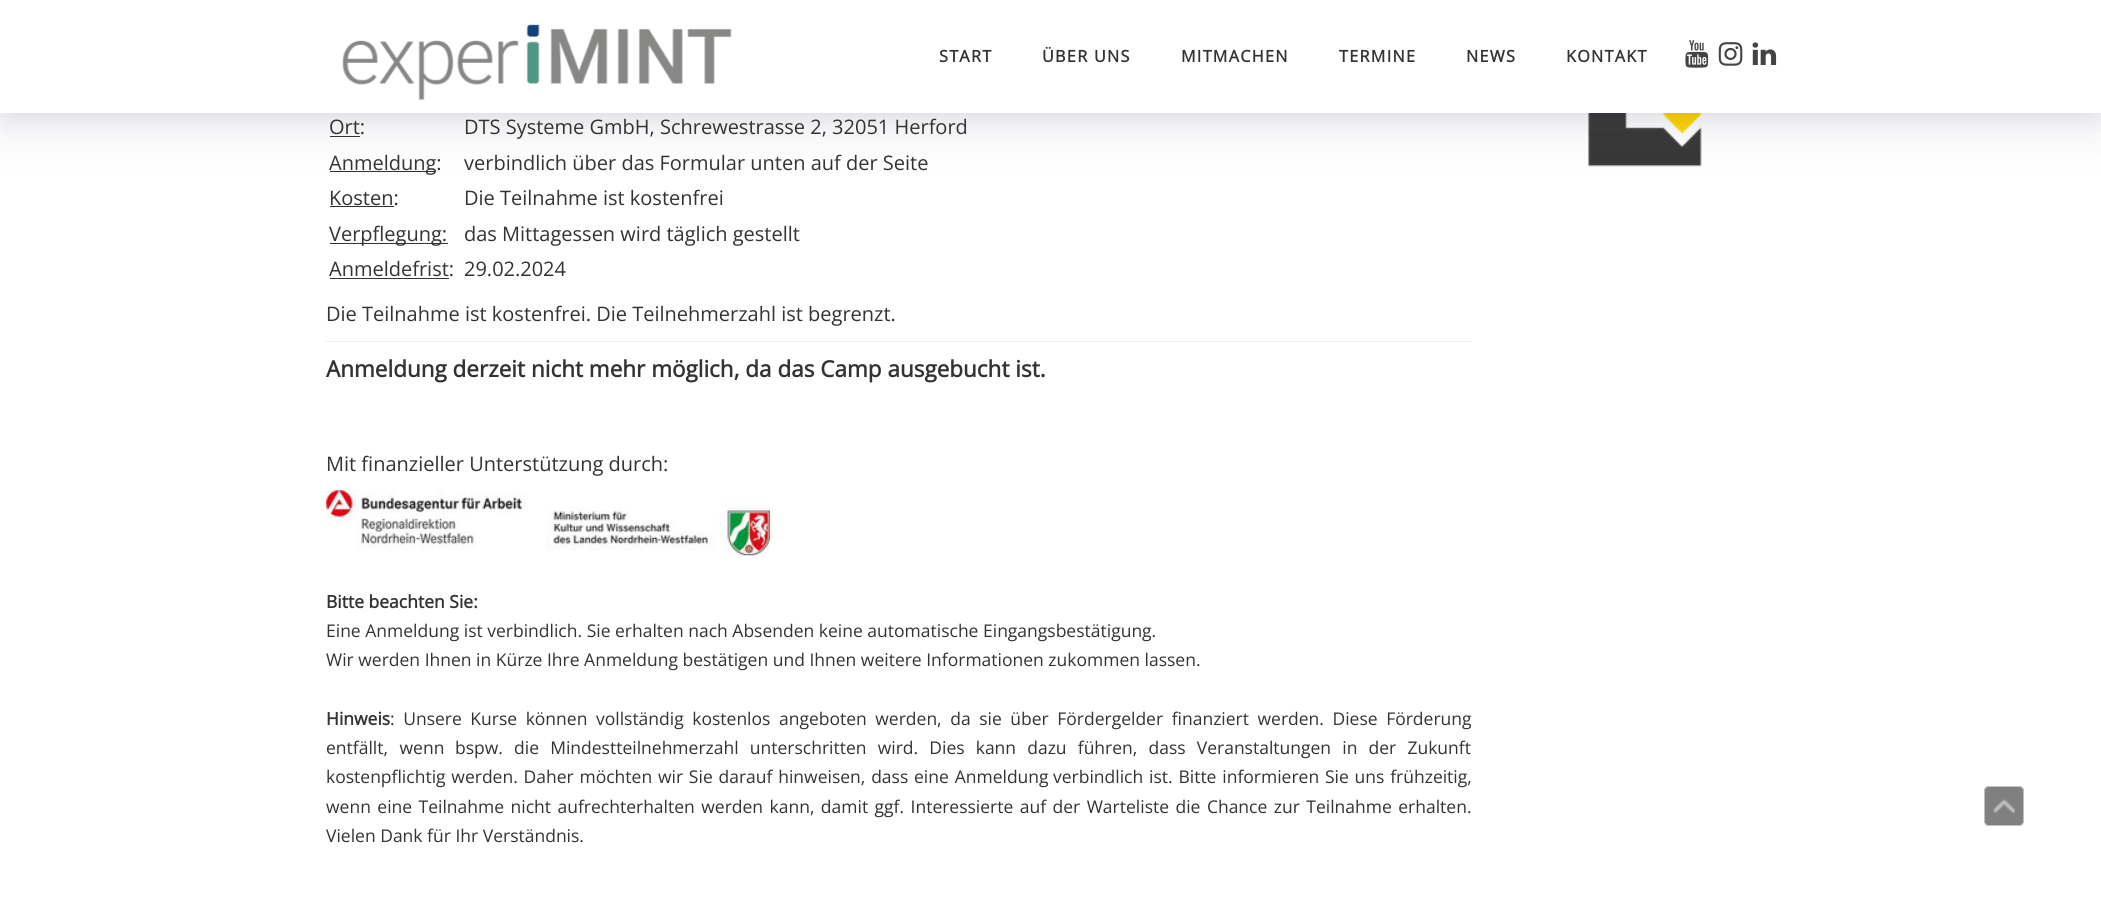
import math
import cairo

surface = cairo.ImageSurface(cairo.Format.RGB24, 2101, 901)
ctx = cairo.Context(surface)
options = cairo.FontOptions()
options.set_hint_metrics(cairo.HintMetrics.OFF)
options.set_hint_style(cairo.HintStyle.NONE)
ctx.set_font_options(options)
ctx.set_miter_limit(4)


def ink(r, g, b):
    ctx.set_source_rgb(r / 255, g / 255, b / 255)


def write(x, y, s, family, size, color, bold=False, italic=False):
    ctx.select_font_face(family, cairo.FontSlant.ITALIC if italic else cairo.FontSlant.NORMAL, cairo.FontWeight.BOLD if bold else cairo.FontWeight.NORMAL)
    ctx.set_font_size(size)
    ink(*color)
    ctx.move_to(x, y)
    ctx.show_text(s)


def write_spaced(x, y, s, letter, word):
    ctx.move_to(x, y)
    for ch in s:
        ctx.show_text(ch)
        ctx.rel_move_to(letter + word * (ch == ' '), 0)


def block(x, y, w, h, *color):
    ink(*color)
    ctx.rectangle(x, y, w, h)
    ctx.fill()


def round_path(x, y, w, h, r):
    ctx.new_sub_path()
    for i, (u, v) in enumerate([(x + w - r, y + h - r), (x + r, y + h - r), (x + r, y + r), (x + w - r, y + r)]):
        ctx.arc(u, v, r, i * math.pi / 2, (i + 1) * math.pi / 2)
    ctx.close_path()


def blur_box(x, y, w, h, r, blur, alpha):
    ctx.push_group_with_content(cairo.Content.ALPHA)
    ctx.set_operator(cairo.Operator.SOURCE)
    for i in range(15, -16, -2):
        e = blur * i / 6
        if min(w, h) + 2 * e > 0:
            ctx.set_source_rgba(0, 0, 0, alpha * math.erfc((i - 1) / 8.5) / 2)
            round_path(x - e, y - e, w + 2 * e, h + 2 * e, max(0, min(r + e + blur * .6, min(w, h) / 2 + e)))
            ctx.fill()
    ctx.mask(ctx.pop_group())


def paste(path, x, y, w, h):
    ctx.save()
    ctx.set_source_surface(cairo.ImageSurface.create_from_png(path), x, y)
    ctx.rectangle(x, y, w, h)
    ctx.fill()
    ctx.restore()


s1 = dict(family="Open Sans", size=20, color=(51, 51, 51))
s2 = dict(family="Open Sans", size=22.5, color=(51, 51, 51), bold=True)
s3 = dict(family="Open Sans", size=17.5, color=(51, 51, 51), bold=True)
s4 = dict(family="Open Sans", size=17.5, color=(51, 51, 51))

ink(255, 255, 255)
ctx.paint()
block(330, 136, 30, 1, 51, 51, 51)
paste("pic6.png", 1588, 113, 114, 54)
ink(0, 0, 0)
blur_box(0, 6, 2101, 113, 0, 9.5, 0.07)
block(330, 171, 106, 1, 51, 51, 51)
ink(74, 74, 115)
blur_box(0, 21, 2101, 113, 0, 22, 0.1)
block(0, 0, 2101, 113, 255, 255, 255)
paste("pic1.png", 342, 24, 390, 76)
ctx.select_font_face("Open Sans", cairo.FontSlant.NORMAL, cairo.FontWeight.BOLD)
ctx.set_font_size(16.25)
ink(51, 51, 51)
write_spaced(939, 62, "START", 1.25, 0)
write_spaced(1042, 62, "ÜBER UNS", 1.25, 0)
write_spaced(1181, 62, "MITMACHEN", 1.25, 0)
write_spaced(1339, 62, "TERMINE", 1.25, 0)
write_spaced(1466, 62, "NEWS", 1.25, 0)
write_spaced(1566, 62, "KONTAKT", 1.25, 0)
paste("pic2.png", 1685, 40, 24, 28)
paste("pic3.png", 1718, 42, 25, 24)
paste("pic4.png", 1752, 42, 25, 23)
write(329, 134, "Ort:", **s1)
write(464, 134, "DTS Systeme GmbH, Schrewestrasse 2, 32051 Herford", **s1)
write(329, 170, "Anmeldung:", **s1)
write(464, 170, "verbindlich über das Formular unten auf der Seite", **s1)
write(329, 205, "Kosten:", **s1)
block(330, 206, 64, 1, 51, 51, 51)
write(464, 205, "Die Teilnahme ist kostenfrei", **s1)
block(330, 243, 118, 1, 51, 51, 51)
write(329, 241, "Verpflegung:", **s1)
write(464, 241, "das Mittagessen wird täglich gestellt", **s1)
write(329, 276, "Anmeldefrist:", **s1)
block(330, 278, 119, 1, 51, 51, 51)
write(464, 276, "29.02.2024", **s1)
write(326, 321, "Die Teilnahme ist kostenfrei. Die Teilnehmerzahl ist begrenzt.", **s1)
block(326, 341, 1145, 1, 238, 238, 238)
write(326, 377, "Anmeldung derzeit nicht mehr möglich, da das Camp ausgebucht ist.", **s2)
write(326, 471, "Mit finanzieller Unterstützung durch:", **s1)
paste("pic5.png", 326, 490, 444, 66)
write(326, 608, "Bitte beachten Sie:", **s3)
write(326, 637, "Eine Anmeldung ist verbindlich. Sie erhalten nach Absenden keine automatische Eingangsbestätigung.", **s4)
write(326, 666, "Wir werden Ihnen in Kürze Ihre Anmeldung bestätigen und Ihnen weitere Informationen zukommen lassen.", **s4)
write(326, 725, "Hinweis", **s3)
ctx.select_font_face("Open Sans")
write_spaced(390, 725, ": Unsere Kurse können vollständig kostenlos angeboten werden, da sie über Fördergelder finanziert werden. Diese Förderung", 0, 4)
write_spaced(326, 754, "entfällt, wenn", 0, 7)
write_spaced(455, 754, "bspw. die Mindestteilnehmerzahl unterschritten wird. Dies kann dazu führen, dass Veranstaltungen in der Zukunft", 0, 6.6)
write_spaced(326, 783, "kostenpflichtig werden. Daher möchten wir Sie darauf hinweisen, dass eine Anmeldung", 0, 1.25)
write_spaced(1053, 783, "verbindlich ist. Bitte informieren Sie uns frühzeitig,", 0, 1.25)
write_spaced(326, 813, "wenn eine Teilnahme nicht aufrechterhalten werden kann, damit ggf. Interessierte auf der Warteliste die Chance zur Teilnahme erhalten.", 0, 1.9)
write(326, 842, "Vielen Dank für Ihr Verständnis.", **s4)
ink(128, 128, 128)
round_path(1984, 786, 40, 40, 5)
ctx.fill()
round_path(1984.5, 786.5, 39, 39, 4.5)
ctx.set_source_rgba(1, 1, 1, 0.5)
ctx.set_line_width(1)
ctx.stroke()
paste("pic7.png", 1993, 799, 23, 14)
surface.write_to_png("screenshot.png")
